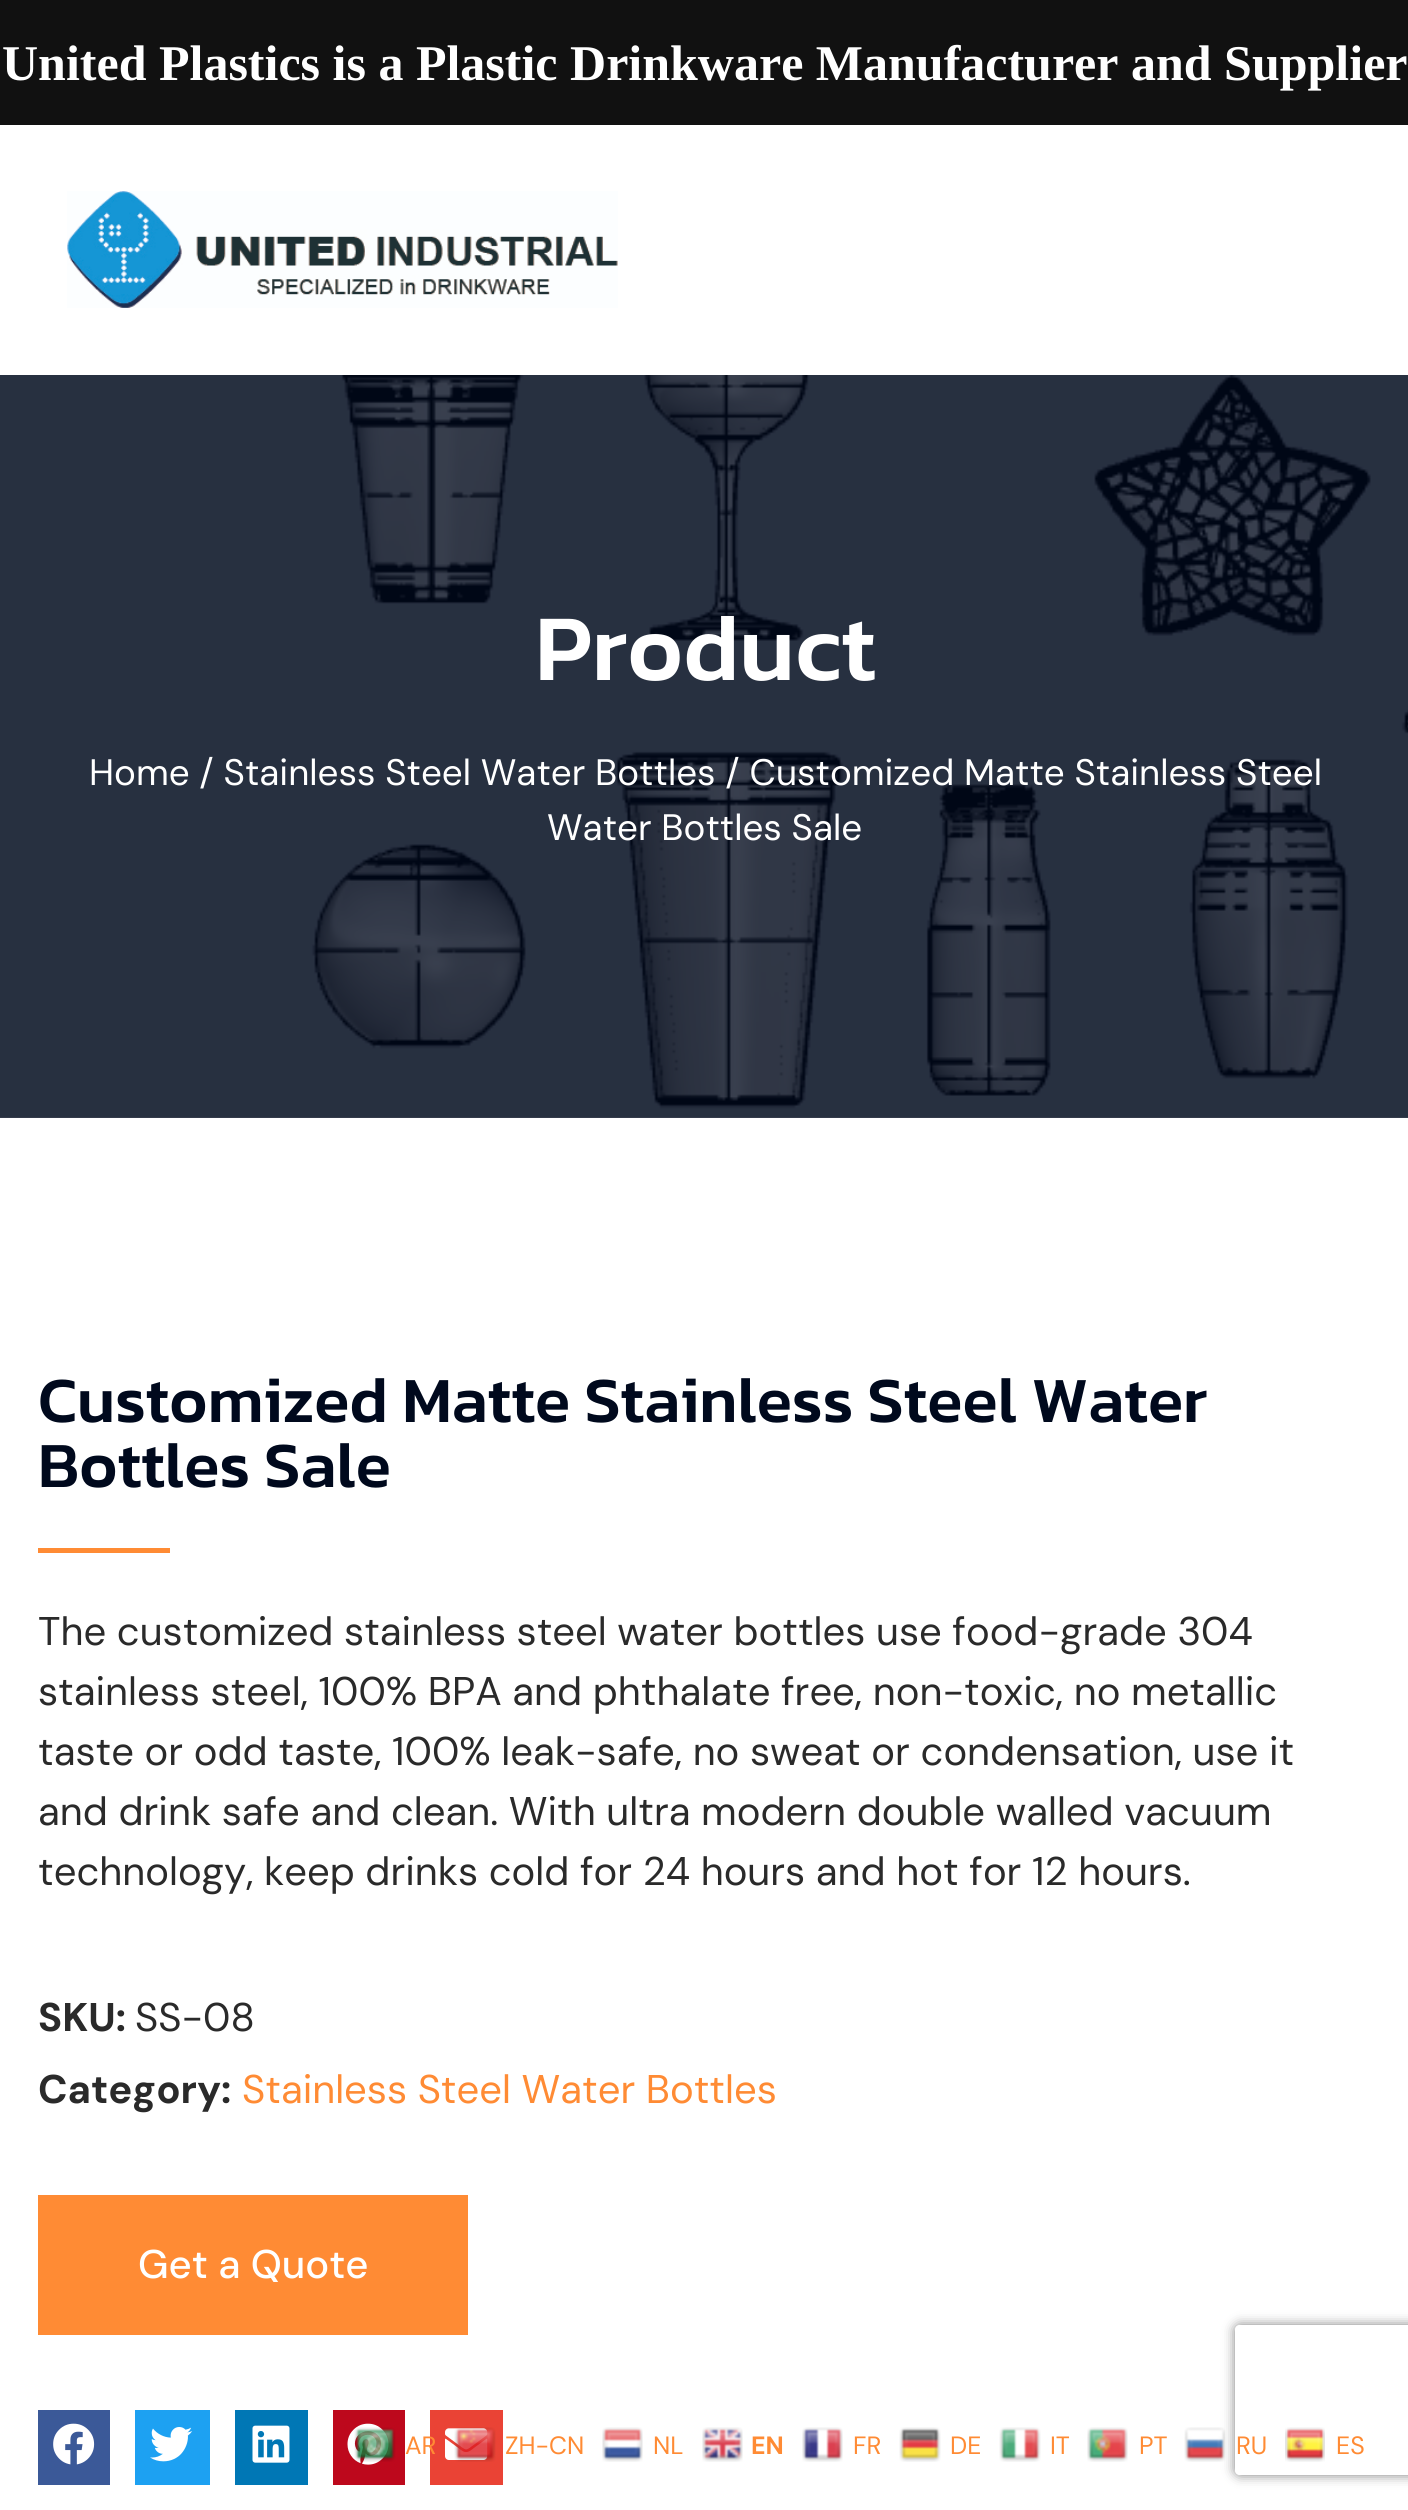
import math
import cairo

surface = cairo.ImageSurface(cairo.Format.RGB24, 1408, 2510)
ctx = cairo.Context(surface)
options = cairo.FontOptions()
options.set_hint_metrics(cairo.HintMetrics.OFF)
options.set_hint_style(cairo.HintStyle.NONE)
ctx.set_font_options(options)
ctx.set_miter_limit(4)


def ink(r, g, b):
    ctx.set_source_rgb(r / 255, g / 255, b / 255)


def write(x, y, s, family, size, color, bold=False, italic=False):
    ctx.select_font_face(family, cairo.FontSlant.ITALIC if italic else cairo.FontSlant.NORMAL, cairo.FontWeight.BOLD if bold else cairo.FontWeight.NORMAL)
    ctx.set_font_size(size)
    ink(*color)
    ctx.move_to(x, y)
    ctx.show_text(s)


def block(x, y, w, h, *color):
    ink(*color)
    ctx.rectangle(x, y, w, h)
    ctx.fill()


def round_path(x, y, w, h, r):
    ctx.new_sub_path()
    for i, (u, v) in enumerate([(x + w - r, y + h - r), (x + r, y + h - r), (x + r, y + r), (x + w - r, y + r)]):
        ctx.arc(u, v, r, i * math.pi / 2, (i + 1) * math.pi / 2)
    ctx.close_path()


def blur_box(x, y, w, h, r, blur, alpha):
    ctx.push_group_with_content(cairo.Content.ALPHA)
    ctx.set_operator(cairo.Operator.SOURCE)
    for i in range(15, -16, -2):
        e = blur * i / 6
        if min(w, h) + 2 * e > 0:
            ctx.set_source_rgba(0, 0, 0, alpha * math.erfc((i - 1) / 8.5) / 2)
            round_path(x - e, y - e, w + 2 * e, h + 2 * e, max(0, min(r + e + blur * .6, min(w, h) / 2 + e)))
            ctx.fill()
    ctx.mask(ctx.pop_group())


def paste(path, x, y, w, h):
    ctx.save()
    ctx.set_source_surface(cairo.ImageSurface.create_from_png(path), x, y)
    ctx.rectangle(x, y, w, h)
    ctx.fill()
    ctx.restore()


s1 = dict(family="Liberation Serif", size=50, color=(255, 255, 255), bold=True)
s2 = dict(family="Kanit Medium", size=95, color=(255, 255, 255))
s3 = dict(family="DM Sans", size=36.8, color=(255, 255, 255))
s4 = dict(family="Kanit Medium", size=65, color=(0, 9, 29))
s5 = dict(family="DM Sans", size=40, color=(42, 42, 42))
s6 = dict(family="DM Sans", size=40, color=(42, 42, 42), bold=True)
s7 = dict(family="DM Sans", size=40, color=(255, 139, 52))
s8 = dict(family="DM Sans Medium", size=40, color=(255, 255, 255))
s9 = dict(family="DM Sans", size=25, color=(255, 139, 52))
s10 = dict(family="DM Sans", size=25, color=(255, 139, 52), bold=True)

ink(255, 255, 255)
ctx.paint()
block(0, 1117, 1408, 1, 64, 71, 86)
block(0, 0, 1408, 125, 17, 17, 17)
write(2, 80, "United Plastics is a Plastic Drinkware Manufacturer and Supplier", **s1)
paste("pic1.png", 67, 191, 551, 117)
paste("pic2.png", 0, 375, 1408, 743)
write(535, 680, "Product", **s2)
write(89, 785, "Home / Stainless Steel Water Bottles / Customized Matte Stainless Steel", **s3)
write(547, 840, "Water Bottles Sale", **s3)
write(38, 1422, "Customized Matte Stainless Steel Water", **s4)
write(38, 1487, "Bottles Sale", **s4)
block(38, 1548, 132, 5, 255, 139, 52)
write(38, 1645, "The customized stainless steel water bottles use food-grade 304", **s5)
write(38, 1705, "stainless steel, 100% BPA and phthalate free, non-toxic, no metallic", **s5)
write(38, 1765, "taste or odd taste, 100% leak-safe, no sweat or condensation, use it", **s5)
write(38, 1825, "and drink safe and clean. With ultra modern double walled vacuum", **s5)
write(38, 1885, "technology, keep drinks cold for 24 hours and hot for 12 hours.", **s5)
write(38, 2031, "SKU:", **s6)
write(135, 2031, "SS-08", **s5)
write(38, 2103, "Category:", **s6)
write(242, 2103, "Stainless Steel Water Bottles", **s7)
block(38, 2195, 430, 140, 255, 139, 52)
write(138, 2278, "Get a Quote", **s8)
block(38, 2410, 72, 75, 59, 89, 152)
paste("pic3.png", 53, 2423, 42, 42)
block(135, 2410, 75, 75, 29, 161, 242)
paste("pic4.png", 150, 2427, 43, 35)
block(235, 2410, 73, 75, 0, 119, 181)
paste("pic5.png", 252, 2425, 38, 38)
block(333, 2410, 72, 75, 189, 8, 28)
paste("pic6.png", 347, 2423, 42, 42)
block(430, 2410, 73, 75, 234, 67, 53)
paste("pic7.png", 445, 2428, 43, 32)
ctx.save()
ctx.set_fill_rule(cairo.FillRule.EVEN_ODD)
ctx.new_path()
ctx.move_to(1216, 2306)
ctx.line_to(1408, 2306)
ctx.line_to(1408, 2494)
ctx.line_to(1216, 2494)
ctx.close_path()
ctx.move_to(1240, 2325)
ctx.line_to(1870, 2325)
ctx.curve_to(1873, 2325, 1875, 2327, 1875, 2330)
ctx.line_to(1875, 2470)
ctx.curve_to(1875, 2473, 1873, 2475, 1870, 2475)
ctx.line_to(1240, 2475)
ctx.curve_to(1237, 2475, 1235, 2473, 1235, 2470)
ctx.line_to(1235, 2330)
ctx.curve_to(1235, 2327, 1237, 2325, 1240, 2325)
ctx.close_path()
ctx.clip()
ink(128, 128, 128)
blur_box(1235, 2325, 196, 150, 5, 6, 1)
ctx.restore()
paste("pic8.png", 354, 2427, 42, 35)
write(405, 2454, "AR", **s9)
paste("pic9.png", 454, 2427, 42, 35)
write(505, 2454, "ZH-CN", **s9)
paste("pic10.png", 602, 2427, 41, 35)
write(653, 2454, "NL", **s9)
paste("pic11.png", 702, 2427, 41, 35)
write(751, 2454, "EN", **s10)
paste("pic12.png", 802, 2427, 41, 35)
write(853, 2454, "FR", **s9)
paste("pic13.png", 899, 2427, 42, 35)
write(950, 2454, "DE", **s9)
paste("pic14.png", 999, 2427, 42, 35)
write(1050, 2454, "IT", **s9)
paste("pic15.png", 1087, 2427, 41, 35)
write(1139, 2454, "PT", **s9)
paste("pic16.png", 1184, 2427, 42, 35)
write(1236, 2454, "RU", **s9)
paste("pic17.png", 1285, 2427, 40, 35)
write(1336, 2454, "ES", **s9)
surface.write_to_png("screenshot.png")
